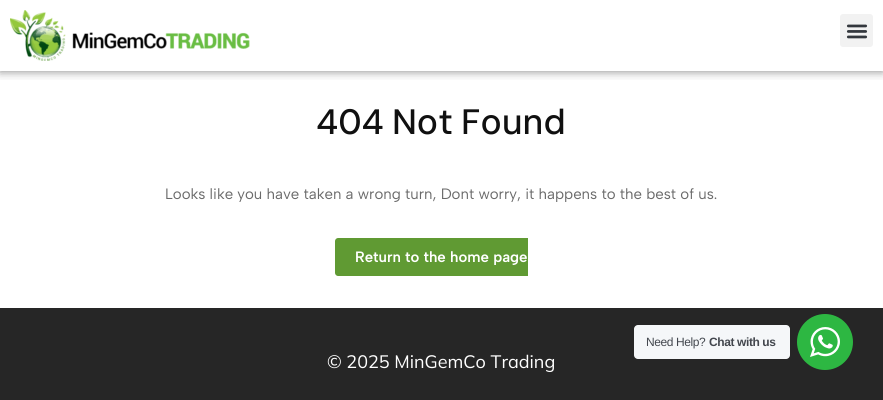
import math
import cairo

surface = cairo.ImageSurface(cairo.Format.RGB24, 883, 400)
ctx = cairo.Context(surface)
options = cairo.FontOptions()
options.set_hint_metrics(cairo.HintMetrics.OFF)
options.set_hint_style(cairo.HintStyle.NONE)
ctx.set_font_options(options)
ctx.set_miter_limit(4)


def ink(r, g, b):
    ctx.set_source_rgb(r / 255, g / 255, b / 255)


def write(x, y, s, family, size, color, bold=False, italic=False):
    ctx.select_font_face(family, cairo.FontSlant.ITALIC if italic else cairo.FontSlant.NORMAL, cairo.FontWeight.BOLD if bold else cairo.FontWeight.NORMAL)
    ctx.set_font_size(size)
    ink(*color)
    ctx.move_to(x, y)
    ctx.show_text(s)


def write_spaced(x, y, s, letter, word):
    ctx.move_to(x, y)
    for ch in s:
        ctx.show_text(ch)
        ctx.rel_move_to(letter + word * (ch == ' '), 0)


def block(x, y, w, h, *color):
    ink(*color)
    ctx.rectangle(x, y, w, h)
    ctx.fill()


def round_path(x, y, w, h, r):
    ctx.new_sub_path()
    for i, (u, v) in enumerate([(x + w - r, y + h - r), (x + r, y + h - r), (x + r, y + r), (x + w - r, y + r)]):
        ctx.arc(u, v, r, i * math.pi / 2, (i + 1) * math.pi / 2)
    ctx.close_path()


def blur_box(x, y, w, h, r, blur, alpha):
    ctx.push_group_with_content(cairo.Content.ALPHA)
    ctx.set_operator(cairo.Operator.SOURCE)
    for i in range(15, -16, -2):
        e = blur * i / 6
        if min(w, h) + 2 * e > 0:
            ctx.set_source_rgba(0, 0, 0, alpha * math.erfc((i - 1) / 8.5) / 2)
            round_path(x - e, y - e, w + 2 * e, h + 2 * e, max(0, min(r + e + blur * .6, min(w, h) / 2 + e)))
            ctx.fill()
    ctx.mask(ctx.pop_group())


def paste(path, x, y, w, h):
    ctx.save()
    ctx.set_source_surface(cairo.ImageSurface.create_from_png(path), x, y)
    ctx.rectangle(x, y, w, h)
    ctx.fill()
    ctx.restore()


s1 = dict(family="Albert Sans", size=15, color=(106, 106, 106))
s2 = dict(family="Albert Sans SemiBold", size=15, color=(255, 255, 255))
s3 = dict(family="Mulish", size=18, color=(255, 255, 255))

ink(255, 255, 255)
ctx.paint()
ctx.save()
ctx.rectangle(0, 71, 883, 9)
ctx.clip()
ink(0, 0, 0)
blur_box(0, 0, 883, 71, 0, 5, 0.5)
ctx.restore()
paste("pic1.png", 10, 10, 240, 51)
ink(242, 242, 242)
round_path(840, 14, 33, 33, 3)
ctx.fill()
paste("pic2.png", 846, 24, 22, 15)
ctx.select_font_face("DM Sans Medium")
ctx.set_font_size(35.25)
ink(16, 16, 16)
write_spaced(316, 134, "404 Not Found", 0, -1)
write(165, 199, "Looks like you have taken a wrong turn, Dont worry, it happens to the best of us.", **s1)
ink(96, 154, 51)
ctx.new_path()
ctx.move_to(338, 238)
ctx.line_to(528, 238)
ctx.line_to(528, 276)
ctx.line_to(338, 276)
ctx.curve_to(336.5, 276, 335, 274.5, 335, 273)
ctx.line_to(335, 241)
ctx.curve_to(335, 239.5, 336.5, 238, 338, 238)
ctx.close_path()
ctx.fill()
write(355, 262, "Return to the home page", **s2)
block(0, 308, 883, 92, 38, 38, 38)
ink(245, 247, 249)
round_path(634, 325, 156, 34, 4)
ctx.fill()
ctx.select_font_face("Liberation Sans")
ctx.set_font_size(12)
ink(67, 71, 78)
write_spaced(646, 346, "Need Help?", -0.4, 0)
ctx.select_font_face("Liberation Sans", cairo.FontSlant.NORMAL, cairo.FontWeight.BOLD)
write_spaced(709, 346, "Chat with us", -0.4, 0)
ink(45, 183, 66)
ctx.new_path()
ctx.arc(825, 342, 28, 0, 2 * math.pi)
ctx.fill()
paste("pic3.png", 810, 327, 30, 30)
write(327, 368, "© 2025 MinGemCo Trading", **s3)
surface.write_to_png("screenshot.png")
